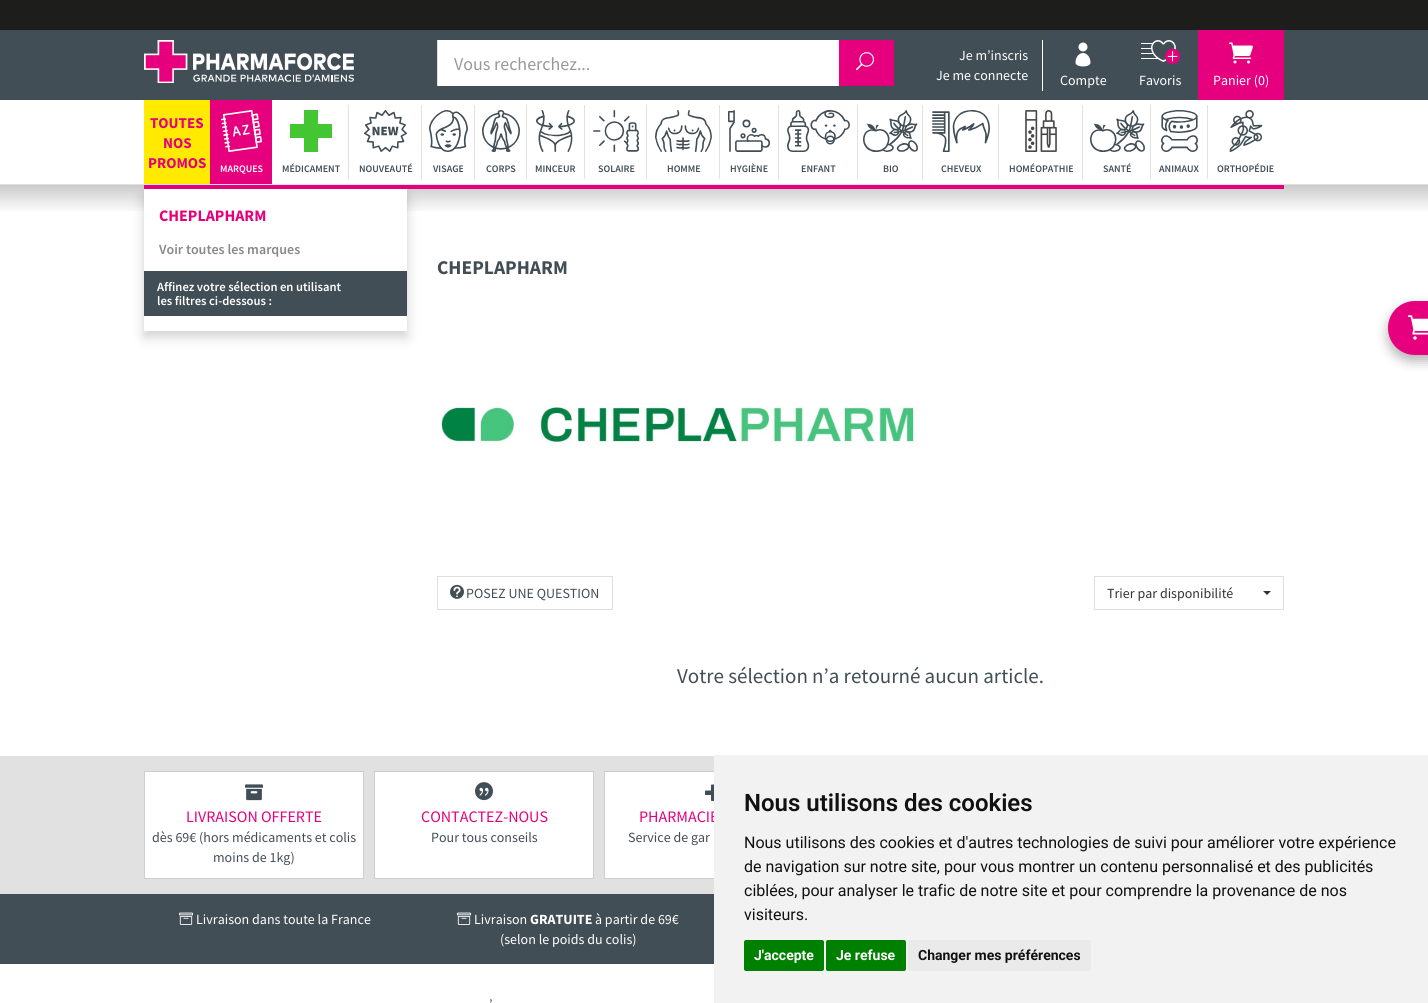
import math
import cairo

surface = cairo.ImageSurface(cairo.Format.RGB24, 1428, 1003)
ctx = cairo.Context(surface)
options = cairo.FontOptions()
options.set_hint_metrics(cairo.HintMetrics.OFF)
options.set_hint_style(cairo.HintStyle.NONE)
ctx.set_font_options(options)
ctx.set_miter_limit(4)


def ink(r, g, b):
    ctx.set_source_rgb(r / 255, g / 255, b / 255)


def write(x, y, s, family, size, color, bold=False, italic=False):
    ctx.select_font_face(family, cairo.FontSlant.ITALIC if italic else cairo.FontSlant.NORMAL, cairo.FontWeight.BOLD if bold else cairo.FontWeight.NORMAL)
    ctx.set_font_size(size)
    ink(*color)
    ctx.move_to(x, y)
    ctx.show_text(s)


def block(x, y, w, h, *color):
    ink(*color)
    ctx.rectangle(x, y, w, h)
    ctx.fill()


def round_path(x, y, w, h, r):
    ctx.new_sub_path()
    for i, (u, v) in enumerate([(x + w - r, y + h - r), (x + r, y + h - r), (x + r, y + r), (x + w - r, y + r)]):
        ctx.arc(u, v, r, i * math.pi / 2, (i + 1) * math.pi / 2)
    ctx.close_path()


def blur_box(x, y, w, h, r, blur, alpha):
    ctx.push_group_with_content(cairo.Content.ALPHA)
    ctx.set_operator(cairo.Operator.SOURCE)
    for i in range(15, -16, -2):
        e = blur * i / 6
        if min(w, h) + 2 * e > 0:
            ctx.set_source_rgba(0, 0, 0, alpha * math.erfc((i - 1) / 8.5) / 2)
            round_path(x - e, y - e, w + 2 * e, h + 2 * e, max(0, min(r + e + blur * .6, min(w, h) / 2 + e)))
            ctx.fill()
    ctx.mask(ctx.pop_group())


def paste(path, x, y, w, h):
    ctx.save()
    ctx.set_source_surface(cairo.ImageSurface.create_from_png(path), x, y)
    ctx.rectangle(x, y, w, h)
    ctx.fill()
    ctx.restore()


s1 = dict(family="Source Sans Pro", size=18, color=(153, 153, 153))
s2 = dict(family="Source Sans Pro", size=14, color=(255, 255, 255))
s3 = dict(family="Source Sans Pro", size=15, color=(230, 0, 126), bold=True)
s4 = dict(family="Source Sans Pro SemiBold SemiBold", size=10, color=(255, 255, 255))
s5 = dict(family="Source Sans Pro SemiBold SemiBold", size=10, color=(65, 78, 86))
s6 = dict(family="Source Sans Pro", size=16, color=(230, 0, 126), bold=True)
s7 = dict(family="Source Sans Pro SemiBold SemiBold", size=14, color=(136, 136, 136))
s8 = dict(family="Source Sans Pro SemiBold SemiBold", size=12.6, color=(255, 255, 255))
s9 = dict(family="Source Sans Pro", size=19.5, color=(65, 78, 86), bold=True)
s10 = dict(family="Source Sans Pro", size=14, color=(65, 78, 86))
s11 = dict(family="Source Sans Pro", size=14, color=(51, 51, 51))
s12 = dict(family="Source Sans Pro", size=21, color=(65, 78, 86))
s13 = dict(family="Source Sans Pro", size=16, color=(230, 0, 126))
s14 = dict(family="Source Sans Pro", size=14, color=(255, 255, 255), bold=True)
s15 = dict(family="Roboto SemiBold", size=24, color=(17, 17, 17))
s16 = dict(family="Roboto", size=16, color=(17, 17, 17))
s17 = dict(family="Roboto", size=14, color=(255, 255, 255), bold=True)
s18 = dict(family="Roboto", size=14, color=(17, 17, 17), bold=True)

ink(255, 255, 255)
ctx.paint()
paste("pic20.png", 0, 185, 1428, 26)
block(144, 185, 1140, 4, 230, 0, 126)
ctx.save()
ctx.set_fill_rule(cairo.FillRule.EVEN_ODD)
ctx.new_path()
ctx.move_to(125, 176)
ctx.line_to(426, 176)
ctx.line_to(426, 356)
ctx.line_to(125, 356)
ctx.close_path()
ctx.move_to(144, 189)
ctx.line_to(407, 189)
ctx.line_to(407, 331)
ctx.line_to(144, 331)
ctx.close_path()
ctx.clip()
ink(0, 0, 0)
blur_box(144, 195, 263, 142, 0, 6, 0.18)
ctx.restore()
block(0, 184, 1428, 1, 225, 225, 225)
block(0, 0, 1428, 30, 29, 29, 27)
block(0, 30, 1428, 70, 65, 78, 86)
paste("pic1.png", 144, 40, 210, 43)
block(438, 40, 401, 46, 255, 255, 255)
block(437, 40, 1, 46, 223, 223, 223)
write(454, 70, "Vous recherchez...", **s1)
block(839, 40, 55, 46, 230, 0, 126)
paste("pic2.png", 856, 52, 18, 19)
write(959, 60, "Je m’inscris", **s2)
block(1042, 40, 1, 51, 255, 255, 255)
write(936, 80, "Je me connecte", **s2)
paste("pic3.png", 1075, 42, 16, 25)
write(1060, 85, "Compte", **s2)
paste("pic4.png", 1141, 40, 39, 24)
write(1139, 85, "Favoris", **s2)
block(1198, 30, 86, 70, 230, 0, 126)
paste("pic5.png", 1229, 42, 24, 22)
write(1213, 85, "Panier (0)", **s2)
block(144, 100, 66, 84, 255, 234, 0)
write(150, 128, "TOUTES", **s3)
write(163, 148, "NOS", **s3)
write(148, 168, "PROMOS", **s3)
block(210, 100, 62, 84, 230, 0, 126)
paste("pic6.png", 221, 110, 41, 42)
write(220, 172, "MARQUES", **s4)
ink(67, 198, 49)
ctx.new_path()
ctx.move_to(332, 124)
ctx.line_to(318, 124)
ctx.line_to(318, 110)
ctx.line_to(304, 110)
ctx.line_to(304, 124)
ctx.line_to(290, 124)
ctx.line_to(290, 138)
ctx.line_to(304, 138)
ctx.line_to(304, 152)
ctx.line_to(318, 152)
ctx.line_to(318, 138)
ctx.line_to(332, 138)
ctx.close_path()
ctx.fill()
write(282, 172, "MÉDICAMENT", **s5)
block(348, 105, 1, 74, 225, 225, 225)
paste("pic7.png", 364, 110, 43, 42)
write(359, 172, "NOUVEAUTÉ", **s5)
block(421, 105, 1, 74, 225, 225, 225)
paste("pic8.png", 429, 110, 39, 42)
write(433, 172, "VISAGE", **s5)
block(474, 105, 1, 74, 225, 225, 225)
paste("pic9.png", 482, 110, 38, 42)
write(486, 172, "CORPS", **s5)
block(526, 105, 1, 74, 225, 225, 225)
paste("pic10.png", 536, 110, 39, 42)
write(535, 172, "MINCEUR", **s5)
block(584, 105, 1, 74, 225, 225, 225)
paste("pic11.png", 593, 110, 46, 42)
write(598, 172, "SOLAIRE", **s5)
block(646, 105, 1, 74, 225, 225, 225)
paste("pic12.png", 655, 110, 57, 42)
write(667, 172, "HOMME", **s5)
block(719, 105, 1, 74, 225, 225, 225)
paste("pic13.png", 728, 110, 42, 42)
write(730, 172, "HYGIÈNE", **s5)
block(778, 105, 1, 74, 225, 225, 225)
paste("pic14.png", 787, 110, 63, 42)
write(801, 172, "ENFANT", **s5)
block(857, 105, 1, 74, 225, 225, 225)
paste("pic15.png", 863, 110, 55, 42)
write(883, 172, "BIO", **s5)
block(922, 105, 1, 74, 225, 225, 225)
paste("pic16.png", 932, 110, 58, 42)
write(941, 172, "CHEVEUX", **s5)
block(998, 105, 1, 74, 225, 225, 225)
paste("pic17.png", 1025, 110, 32, 42)
write(1009, 172, "HOMÉOPATHIE", **s5)
block(1082, 105, 1, 74, 225, 225, 225)
paste("pic15.png", 1090, 110, 55, 42)
write(1103, 172, "SANTÉ", **s5)
block(1150, 105, 1, 74, 225, 225, 225)
paste("pic18.png", 1161, 110, 37, 42)
write(1159, 172, "ANIMAUX", **s5)
block(1207, 105, 1, 74, 225, 225, 225)
paste("pic19.png", 1229, 110, 34, 42)
write(1217, 172, "ORTHOPÉDIE", **s5)
block(144, 189, 263, 22, 255, 255, 255)
write(159, 221, "CHEPLAPHARM", **s6)
write(159, 254, "Voir toutes les marques", **s7)
block(144, 271, 263, 45, 65, 78, 86)
write(157, 291, "Affinez votre sélection en utilisant", **s8)
write(157, 305, "les filtres ci-dessous :", **s8)
write(437, 274, "CHEPLAPHARM", **s9)
paste("pic21.png", 437, 407, 481, 39)
ctx.rectangle(437.5, 576.5, 175, 33)
ink(223, 223, 223)
ctx.set_line_width(1)
ctx.stroke()
paste("pic22.png", 450, 584, 14, 15)
write(466, 598, "POSEZ UNE QUESTION", **s10)
ctx.rectangle(1094.5, 576.5, 189, 33)
ink(223, 223, 223)
ctx.stroke()
write(1107, 598, "Trier par disponibilité", **s11)
ctx.new_path()
ctx.move_to(1263, 591)
ctx.line_to(1271, 591)
ctx.line_to(1267, 595)
ctx.close_path()
ctx.fill()
write(677, 683, "Votre sélection n’a retourné aucun article.", **s12)
ink(0, 0, 0)
blur_box(1388, 307, 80, 54, 27, 6, 0.3)
ink(230, 0, 126)
ctx.new_path()
ctx.move_to(1415, 301)
ctx.line_to(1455, 301)
ctx.line_to(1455, 355)
ctx.line_to(1415, 355)
ctx.curve_to(1400, 355, 1388, 343, 1388, 328)
ctx.curve_to(1388, 313, 1400, 301, 1415, 301)
ctx.close_path()
ctx.fill()
paste("pic23.png", 1408, 315, 20, 25)
block(0, 756, 714, 138, 225, 225, 225)
ink(255, 255, 255)
ctx.rectangle(144.5, 771.5, 219, 107)
ctx.fill_preserve()
ink(206, 206, 206)
ctx.stroke()
paste("pic24.png", 245, 784, 18, 17)
write(186, 822, "LIVRAISON OFFERTE", **s13)
write(152, 842, "dès 69€ (hors médicaments et colis", **s10)
write(213, 862, "moins de 1kg)", **s10)
ink(255, 255, 255)
ctx.rectangle(374.5, 771.5, 219, 107)
ctx.fill_preserve()
ink(206, 206, 206)
ctx.stroke()
paste("pic25.png", 475, 782, 18, 19)
write(421, 822, "CONTACTEZ-NOUS", **s13)
write(431, 842, "Pour tous conseils", **s10)
block(605, 772, 109, 106, 255, 255, 255)
ctx.rectangle(604.5, 771.5, 219, 107)
ink(206, 206, 206)
ctx.stroke()
paste("pic26.png", 705, 784, 9, 17)
write(639, 822, "PHARMACIE", **s13)
write(628, 842, "Service de gar", **s10)
block(0, 894, 714, 70, 65, 78, 86)
paste("pic27.png", 179, 912, 14, 13)
write(196, 924, "Livraison dans toute la France", **s2)
paste("pic27.png", 457, 912, 14, 13)
write(474, 924, "Livraison", **s2)
write(530, 924, "GRATUITE", **s14)
write(595, 924, "à partir de 69€", **s2)
write(500, 944, "(selon le poids du colis)", **s2)
write(489, 1009, "’", **s10)
block(714, 755, 714, 248, 242, 242, 242)
write(744, 811, "Nous utilisons des cookies", **s15)
write(744, 848, "Nous utilisons des cookies et d'autres technologies de suivi pour améliorer votre expérience", **s16)
write(744, 872, "de navigation sur notre site, pour vous montrer un contenu personnalisé et des publicités", **s16)
write(744, 896, "ciblées, pour analyser le trafic de notre site et pour comprendre la provenance de nos", **s16)
write(744, 920, "visiteurs.", **s16)
ink(0, 128, 0)
round_path(744, 940, 80, 31, 2)
ctx.fill()
write(754, 960, "J'accepte", **s17)
ink(0, 128, 0)
round_path(826, 940, 80, 31, 2)
ctx.fill()
write(836, 960, "Je refuse", **s17)
ink(234, 234, 234)
round_path(908, 940, 183, 31, 2)
ctx.fill()
write(918, 960, "Changer mes préférences", **s18)
surface.write_to_png("screenshot.png")
